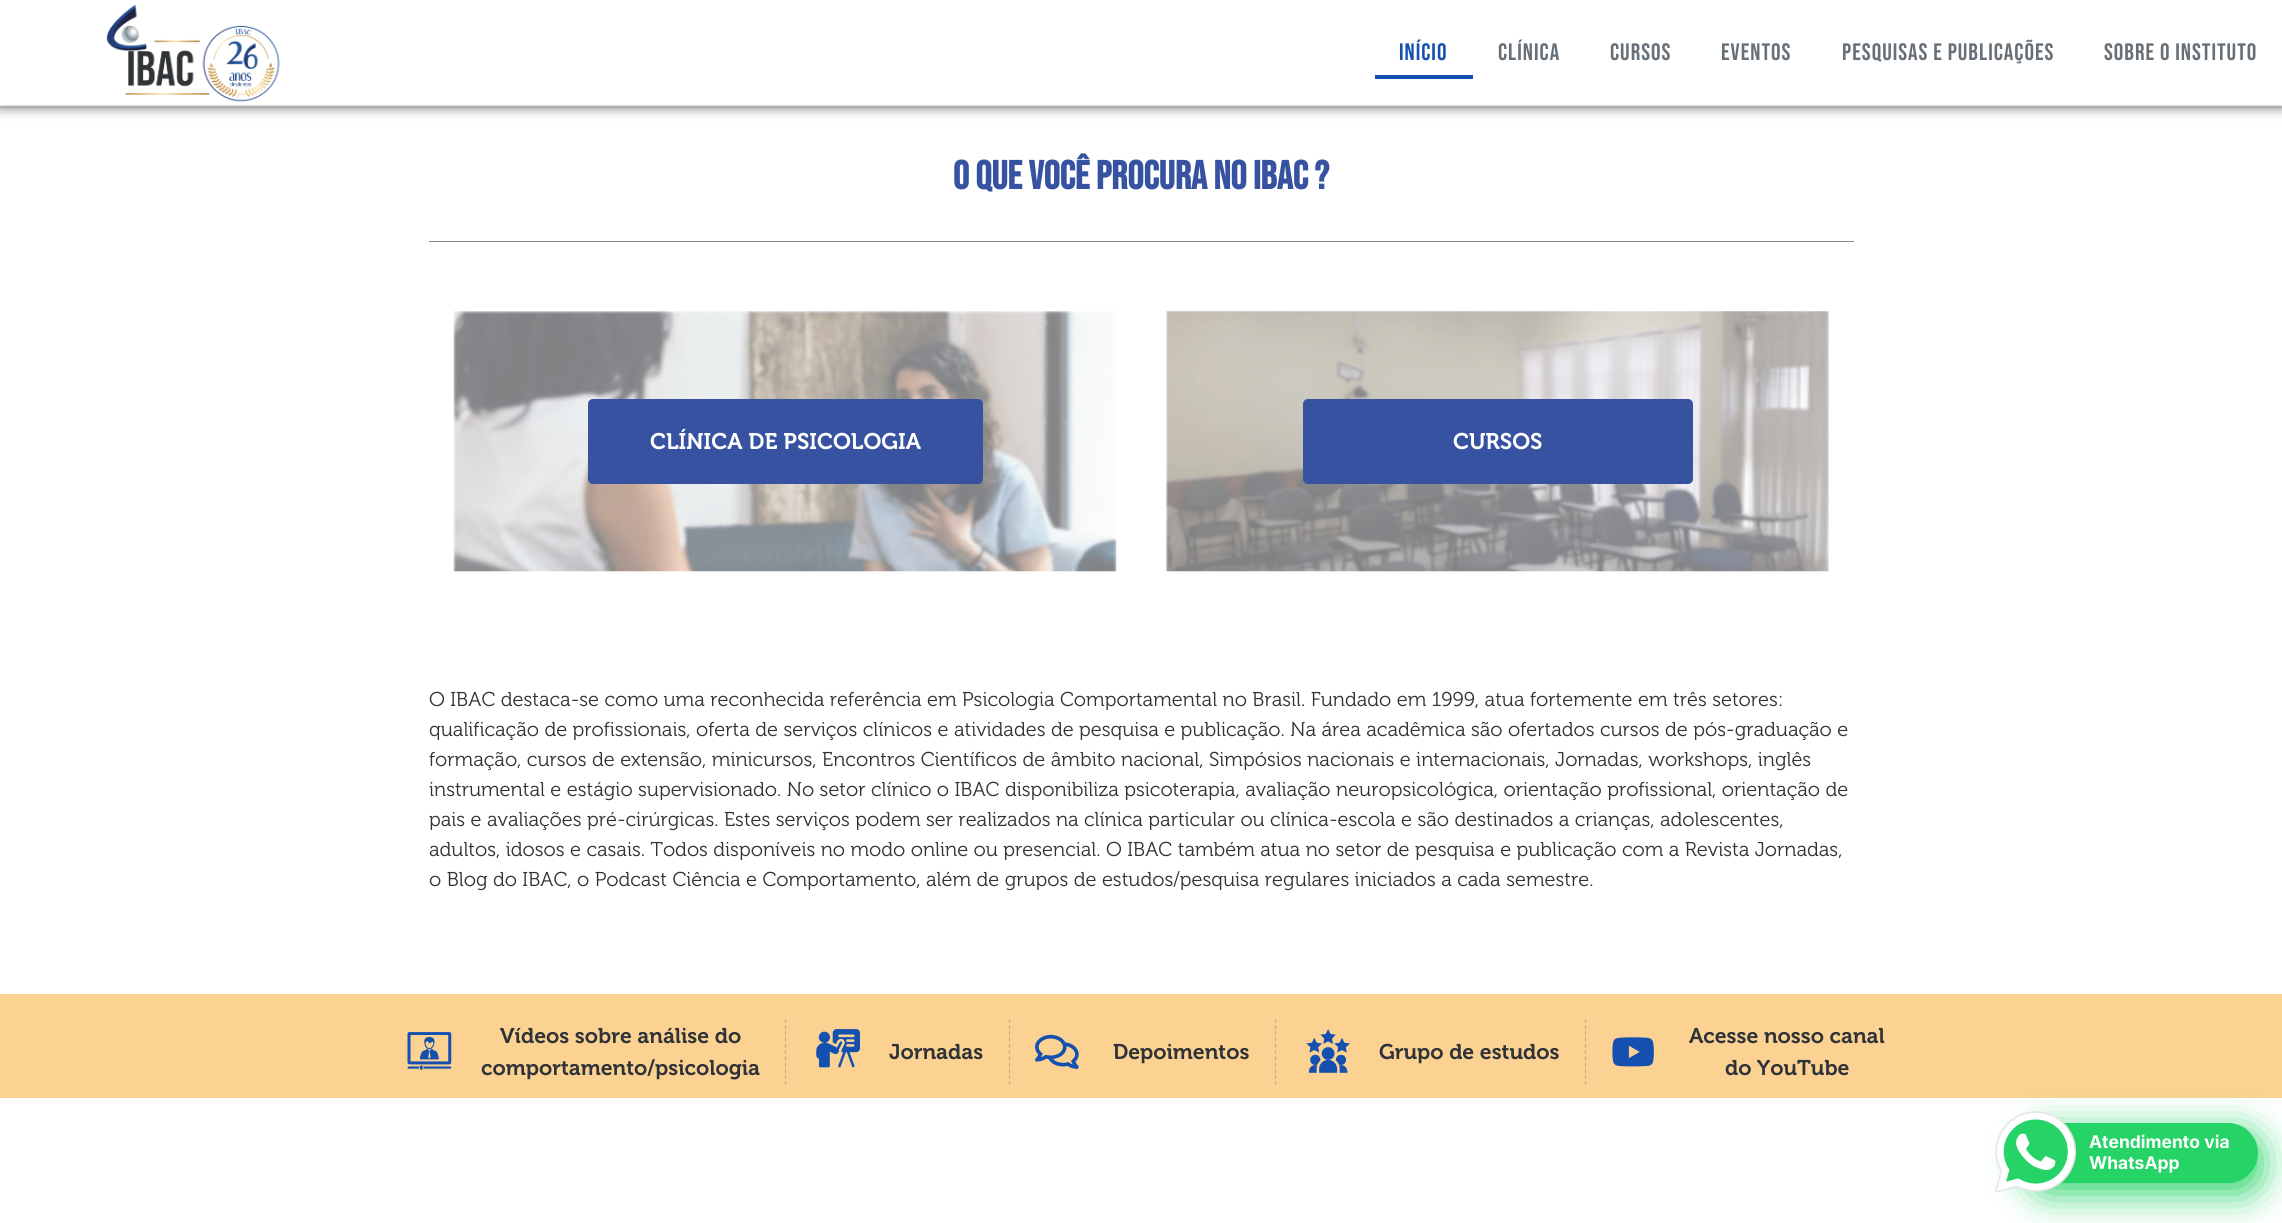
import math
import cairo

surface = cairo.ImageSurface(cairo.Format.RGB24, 2282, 1223)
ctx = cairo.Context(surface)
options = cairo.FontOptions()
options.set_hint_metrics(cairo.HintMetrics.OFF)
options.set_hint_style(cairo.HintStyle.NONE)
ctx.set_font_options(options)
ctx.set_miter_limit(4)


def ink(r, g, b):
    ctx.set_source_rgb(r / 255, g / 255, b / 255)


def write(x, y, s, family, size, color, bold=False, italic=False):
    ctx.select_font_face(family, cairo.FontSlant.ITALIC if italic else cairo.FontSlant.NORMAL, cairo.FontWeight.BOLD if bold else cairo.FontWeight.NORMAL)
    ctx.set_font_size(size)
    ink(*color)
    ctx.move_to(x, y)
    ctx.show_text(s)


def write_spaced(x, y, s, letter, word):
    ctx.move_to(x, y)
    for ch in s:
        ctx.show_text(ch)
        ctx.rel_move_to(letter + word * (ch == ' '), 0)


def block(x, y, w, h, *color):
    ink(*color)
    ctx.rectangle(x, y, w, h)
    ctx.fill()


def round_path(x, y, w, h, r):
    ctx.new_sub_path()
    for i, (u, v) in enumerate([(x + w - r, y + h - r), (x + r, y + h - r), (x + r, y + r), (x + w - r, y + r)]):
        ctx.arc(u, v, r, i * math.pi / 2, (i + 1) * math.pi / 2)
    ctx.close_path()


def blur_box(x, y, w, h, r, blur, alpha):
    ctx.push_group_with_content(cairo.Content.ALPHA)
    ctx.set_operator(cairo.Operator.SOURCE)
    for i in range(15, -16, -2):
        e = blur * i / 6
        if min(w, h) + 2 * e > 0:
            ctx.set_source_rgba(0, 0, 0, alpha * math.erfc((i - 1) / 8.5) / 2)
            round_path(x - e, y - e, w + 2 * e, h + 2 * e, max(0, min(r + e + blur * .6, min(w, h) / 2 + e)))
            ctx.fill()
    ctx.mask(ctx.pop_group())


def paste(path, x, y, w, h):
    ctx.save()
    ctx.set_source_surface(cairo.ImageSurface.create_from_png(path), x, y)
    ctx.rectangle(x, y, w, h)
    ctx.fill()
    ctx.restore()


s1 = dict(family="Bebas Neue", size=40, color=(54, 82, 160), bold=True)
s2 = dict(family="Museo", size=22.5, color=(255, 255, 255))
s3 = dict(family="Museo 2", size=20, color=(47, 51, 55))
s4 = dict(family="Museo", size=21.25, color=(47, 51, 55))
s5 = dict(family="Inter", size=17.5, color=(255, 255, 255), bold=True)

ink(255, 255, 255)
ctx.paint()
ctx.save()
ctx.set_fill_rule(cairo.FillRule.EVEN_ODD)
ctx.new_path()
ctx.move_to(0, 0)
ctx.line_to(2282, 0)
ctx.line_to(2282, 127)
ctx.line_to(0, 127)
ctx.close_path()
ctx.move_to(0, 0)
ctx.line_to(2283, 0)
ctx.line_to(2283, 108)
ctx.line_to(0, 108)
ctx.close_path()
ctx.clip()
ink(0, 0, 0)
blur_box(0, 0, 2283, 108, 0, 6, 0.5)
ctx.restore()
gradient = cairo.LinearGradient(1141, 0, 1141, 108)
gradient.add_color_stop_rgba(0.97, 1, 1, 1, 1)
gradient.add_color_stop_rgba(1, 0.294, 0.294, 0.294, 0.48)
ctx.set_source(gradient)
ctx.rectangle(0, 105, 2282, 3)
ctx.fill()
paste("pic1.png", 106, 4, 174, 98)
ctx.select_font_face("Bebas Neue")
ctx.set_font_size(23.75)
ink(20, 80, 176)
write_spaced(1399, 60, "Início", 1, 0)
block(1375, 75, 98, 4, 20, 80, 176)
ink(104, 112, 119)
write_spaced(1498, 60, "Clínica", 1, 0)
write_spaced(1610, 60, "Cursos", 1, 0)
write_spaced(1721, 60, "Eventos", 1, 0)
write_spaced(1842, 60, "PESQUISAS E PUBLICAÇÕES", 1, 0)
write_spaced(2104, 60, "SOBRE O INSTITUTO", 1, 0)
write(953, 189, "O que você procura no IBAC ?", **s1)
block(429, 241, 1425, 1, 138, 138, 138)
paste("pic2.png", 453, 311, 664, 261)
ink(54, 82, 160)
round_path(588, 399, 395, 85, 5)
ctx.fill()
write(650, 449, "CLÍNICA DE PSICOLOGIA", **s2)
paste("pic3.png", 1166, 311, 663, 261)
ink(54, 82, 160)
round_path(1303, 399, 390, 85, 5)
ctx.fill()
write(1453, 449, "CURSOS", **s2)
write(429, 706, "O IBAC destaca-se como uma reconhecida referência em Psicologia Comportamental no Brasil. Fundado em 1999, atua fortemente em três setores:", **s3)
write(429, 736, "qualificação de profissionais, oferta de serviços clínicos e atividades de pesquisa e publicação. Na área acadêmica são ofertados cursos de pós-graduação e", **s3)
write(429, 766, "formação, cursos de extensão, minicursos, Encontros Científicos de âmbito nacional, Simpósios nacionais e internacionais, Jornadas, workshops, inglês", **s3)
write(429, 796, "instrumental e estágio supervisionado. No setor clínico o IBAC disponibiliza psicoterapia, avaliação neuropsicológica, orientação profissional, orientação de", **s3)
write(429, 826, "pais e avaliações pré-cirúrgicas. Estes serviços podem ser realizados na clínica particular ou clínica-escola e são destinados a crianças, adolescentes,", **s3)
write(429, 856, "adultos, idosos e casais. Todos disponíveis no modo online ou presencial. O IBAC também atua no setor de pesquisa e publicação com a Revista Jornadas,", **s3)
write(429, 886, "o Blog do IBAC, o Podcast Ciência e Comportamento, além de grupos de estudos/pesquisa regulares iniciados a cada semestre.", **s3)
block(0, 994, 2282, 104, 251, 210, 145)
paste("pic4.png", 407, 1032, 45, 38)
write(500, 1043, "Vídeos sobre análise do", **s4)
write(481, 1075, "comportamento/psicologia", **s4)
ctx.new_path()
ctx.move_to(785.5, 1019)
ctx.line_to(785.5, 1085)
ink(195, 173, 135)
ctx.set_line_width(1.2)
ctx.set_dash([3.75, 2.5])
ctx.stroke()
paste("pic5.png", 816, 1029, 44, 39)
write(889, 1059, "Jornadas", **s4)
ctx.new_path()
ctx.move_to(1009.5, 1019)
ctx.line_to(1009.5, 1085)
ink(195, 173, 135)
ctx.stroke()
paste("pic6.png", 1035, 1034, 44, 35)
write(1113, 1059, "Depoimentos", **s4)
ctx.new_path()
ctx.move_to(1275.5, 1019)
ctx.line_to(1275.5, 1085)
ink(195, 173, 135)
ctx.stroke()
paste("pic7.png", 1306, 1029, 44, 44)
write(1379, 1059, "Grupo de estudos", **s4)
ctx.new_path()
ctx.move_to(1585.5, 1019)
ctx.line_to(1585.5, 1085)
ink(195, 173, 135)
ctx.stroke()
paste("pic8.png", 1612, 1037, 42, 30)
write(1689, 1043, "Acesse nosso canal", **s4)
write(1725, 1075, "do YouTube", **s4)
ink(37, 211, 102)
blur_box(2030, 1133, 231, 60, 30, 19, 1)
ink(37, 211, 102)
round_path(2026, 1123, 232, 60, 30)
ctx.fill()
paste("pic9.png", 1995, 1111, 81, 82)
write(2089, 1148, "Atendimento via", **s5)
write(2089, 1169, "WhatsApp", **s5)
surface.write_to_png("screenshot.png")
